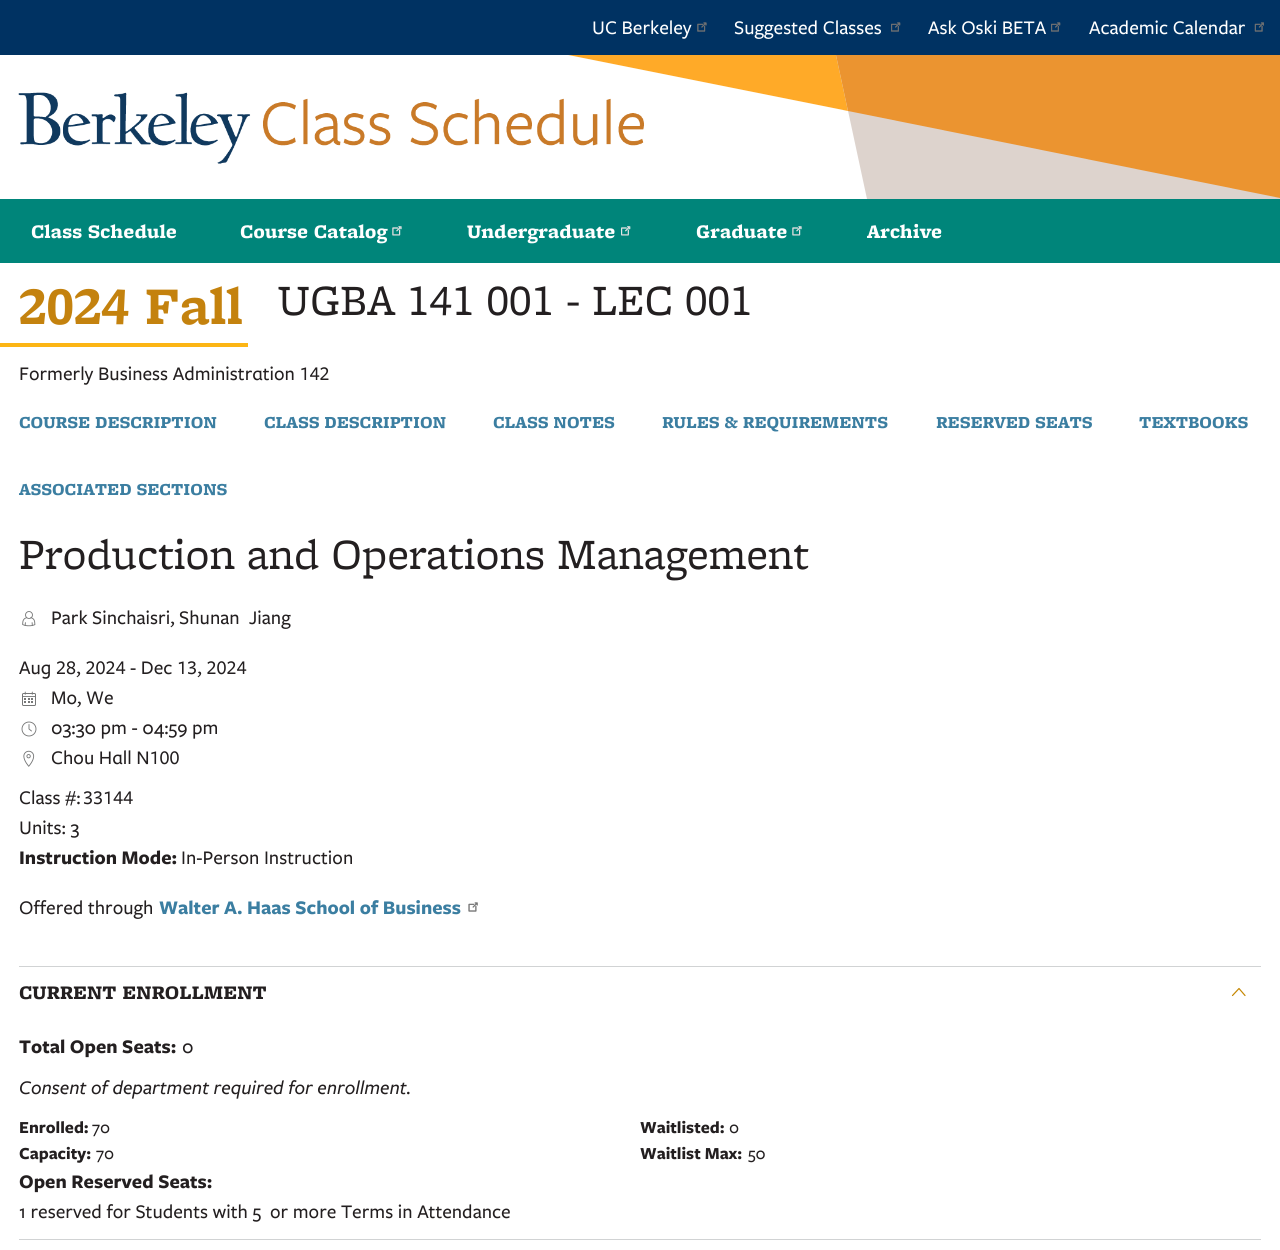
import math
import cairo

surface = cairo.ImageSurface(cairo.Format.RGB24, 1280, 1250)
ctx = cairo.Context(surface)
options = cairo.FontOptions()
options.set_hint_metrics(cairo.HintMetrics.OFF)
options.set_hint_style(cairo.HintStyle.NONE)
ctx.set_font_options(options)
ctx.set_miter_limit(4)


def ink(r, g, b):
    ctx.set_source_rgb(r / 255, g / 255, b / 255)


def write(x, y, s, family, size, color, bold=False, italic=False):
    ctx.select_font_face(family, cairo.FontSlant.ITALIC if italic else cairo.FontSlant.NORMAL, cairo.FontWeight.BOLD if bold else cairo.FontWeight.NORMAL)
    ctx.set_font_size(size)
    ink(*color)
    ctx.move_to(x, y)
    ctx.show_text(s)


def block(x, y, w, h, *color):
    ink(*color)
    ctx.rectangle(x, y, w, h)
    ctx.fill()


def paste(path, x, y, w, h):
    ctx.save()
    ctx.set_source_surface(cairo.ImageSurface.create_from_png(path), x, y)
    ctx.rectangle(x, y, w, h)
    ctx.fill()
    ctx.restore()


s1 = dict(family="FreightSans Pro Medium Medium", size=20, color=(255, 255, 255))
s2 = dict(family="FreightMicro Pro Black", size=20, color=(255, 255, 255))
s3 = dict(family="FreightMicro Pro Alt", size=55, color=(196, 130, 14), bold=True)
s4 = dict(family="FreightMicro Pro Alt", size=45, color=(35, 31, 32))
s5 = dict(family="FreightMicro Pro", size=45, color=(35, 31, 32))
s6 = dict(family="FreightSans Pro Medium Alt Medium", size=20, color=(35, 31, 32))
s7 = dict(family="FreightMicro Pro Black", size=17.5, color=(59, 126, 161))
s8 = dict(family="FreightSans Pro Medium Medium", size=20, color=(35, 31, 32))
s9 = dict(family="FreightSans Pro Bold", size=20, color=(35, 31, 32), bold=True)
s10 = dict(family="FreightSans Pro Bold", size=20, color=(59, 126, 161), bold=True)
s11 = dict(family="FreightMicro Pro Black", size=20, color=(35, 31, 32))
s12 = dict(family="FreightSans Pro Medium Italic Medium", size=20, color=(35, 31, 32), italic=True)
s13 = dict(family="FreightSans Pro Bold", size=17.5, color=(35, 31, 32), bold=True)
s14 = dict(family="FreightSans Pro Medium Medium", size=17.5, color=(35, 31, 32))

ink(255, 255, 255)
ctx.paint()
block(0, 0, 1280, 55, 0, 50, 98)
write(592, 34, "UC Berkeley", **s1)
paste("pic1.png", 697, 22, 10, 10)
write(734, 34, "Suggested Classes", **s1)
paste("pic2.png", 891, 22, 10, 10)
write(928, 34, "Ask Oski BETA", **s1)
paste("pic2.png", 1051, 22, 10, 10)
write(1089, 34, "Academic Calendar", **s1)
paste("pic3.png", 1254, 22, 10, 10)
ink(221, 211, 205)
ctx.set_fill_rule(cairo.FillRule.EVEN_ODD)
ctx.new_path()
ctx.move_to(1280, 55)
ctx.line_to(836, 55)
ctx.line_to(867, 199)
ctx.line_to(1280, 199)
ctx.line_to(1280, 55)
ctx.fill()
ink(255, 170, 40)
ctx.set_fill_rule(cairo.FillRule.WINDING)
ctx.new_path()
ctx.move_to(1280, 55)
ctx.line_to(568, 55)
ctx.line_to(848, 111)
ctx.line_to(836, 55)
ctx.line_to(1280, 55)
ctx.line_to(1280, 198)
ctx.line_to(1280, 55)
ctx.fill()
ink(235, 148, 48)
ctx.new_path()
ctx.move_to(1280, 55)
ctx.line_to(836, 55)
ctx.line_to(848, 111)
ctx.line_to(1280, 198)
ctx.line_to(1280, 55)
ctx.fill()
paste("pic4.png", 18, 92, 626, 72)
block(0, 199, 1280, 64, 0, 133, 122)
write(31, 238, "Class Schedule", **s2)
write(240, 238, "Course Catalog", **s2)
paste("pic5.png", 392, 226, 10, 10)
write(467, 238, "Undergraduate", **s2)
paste("pic6.png", 621, 226, 10, 10)
write(696, 238, "Graduate", **s2)
paste("pic5.png", 792, 226, 10, 10)
write(867, 238, "Archive", **s2)
block(0, 343, 248, 4, 252, 181, 21)
write(19, 324, "2024 Fall", **s3)
write(278, 315, "UGBA 141 001", **s4)
write(566, 315, "- LEC", **s5)
write(685, 315, "001", **s4)
write(19, 380, "Formerly Business Administration 142", **s6)
write(19, 428, "COURSE DESCRIPTION", **s7)
write(264, 428, "CLASS DESCRIPTION", **s7)
write(493, 428, "CLASS NOTES", **s7)
write(662, 428, "RULES & REQUIREMENTS", **s7)
write(936, 428, "RESERVED SEATS", **s7)
write(1139, 428, "TEXTBOOKS", **s7)
write(19, 495, "ASSOCIATED SECTIONS", **s7)
write(19, 569, "Production and Operations Management", **s5)
paste("pic7.png", 22, 611, 14, 16)
write(51, 624, "Park Sinchaisri, Shunan", **s8)
write(249, 624, "Jiang", **s8)
write(19, 674, "Aug 28, 2024 - Dec 13, 2024", **s6)
paste("pic8.png", 22, 691, 14, 15)
write(51, 704, "Mo, We", **s8)
ctx.new_path()
ctx.arc(29, 729, 7, 0, 2 * math.pi)
ink(118, 119, 119)
ctx.set_line_width(0.9)
ctx.stroke()
ctx.new_path()
ctx.move_to(31.5, 731)
ctx.line_to(29, 729)
ctx.line_to(29, 724.5)
ctx.set_line_cap(cairo.LineCap.ROUND)
ctx.set_line_join(cairo.LineJoin.ROUND)
ctx.stroke()
write(51, 734, "03:30 pm - 04:59 pm", **s8)
paste("pic9.png", 23, 750, 12, 17)
write(51, 764, "Chou Hall N100", **s6)
write(19, 804, "Class #:", **s8)
write(83, 804, "33144", **s6)
write(19, 834, "Units: 3", **s8)
write(19, 864, "Instruction Mode:", **s9)
write(181, 864, "In-Person Instruction", **s8)
write(19, 914, "Offered through", **s8)
write(159, 914, "Walter A. Haas School of Business", **s10)
paste("pic10.png", 468, 902, 10, 10)
block(19, 966, 1242, 1, 209, 211, 212)
write(19, 999, "CURRENT ENROLLMENT", **s11)
ctx.new_path()
ctx.move_to(1245, 995.5)
ctx.line_to(1239, 988.5)
ctx.line_to(1232.5, 995.5)
ink(197, 135, 2)
ctx.set_line_width(1.2)
ctx.stroke()
write(19, 1053, "Total Open Seats:", **s9)
write(182, 1053, "0", **s8)
write(19, 1094, "Consent of department required for enrollment.", **s12)
write(19, 1133, "Enrolled:", **s13)
write(92, 1133, "70", **s14)
write(640, 1133, "Waitlisted:", **s13)
write(729, 1133, "0", **s14)
write(19, 1159, "Capacity:", **s13)
write(96, 1159, "70", **s14)
write(640, 1159, "Waitlist Max:", **s13)
write(748, 1159, "50", **s14)
write(19, 1188, "Open Reserved Seats:", **s9)
write(19, 1218, "1 reserved for Students with 5", **s8)
write(270, 1218, "or more Terms in Attendance", **s8)
block(19, 1239, 1242, 1, 209, 211, 212)
surface.write_to_png("screenshot.png")
